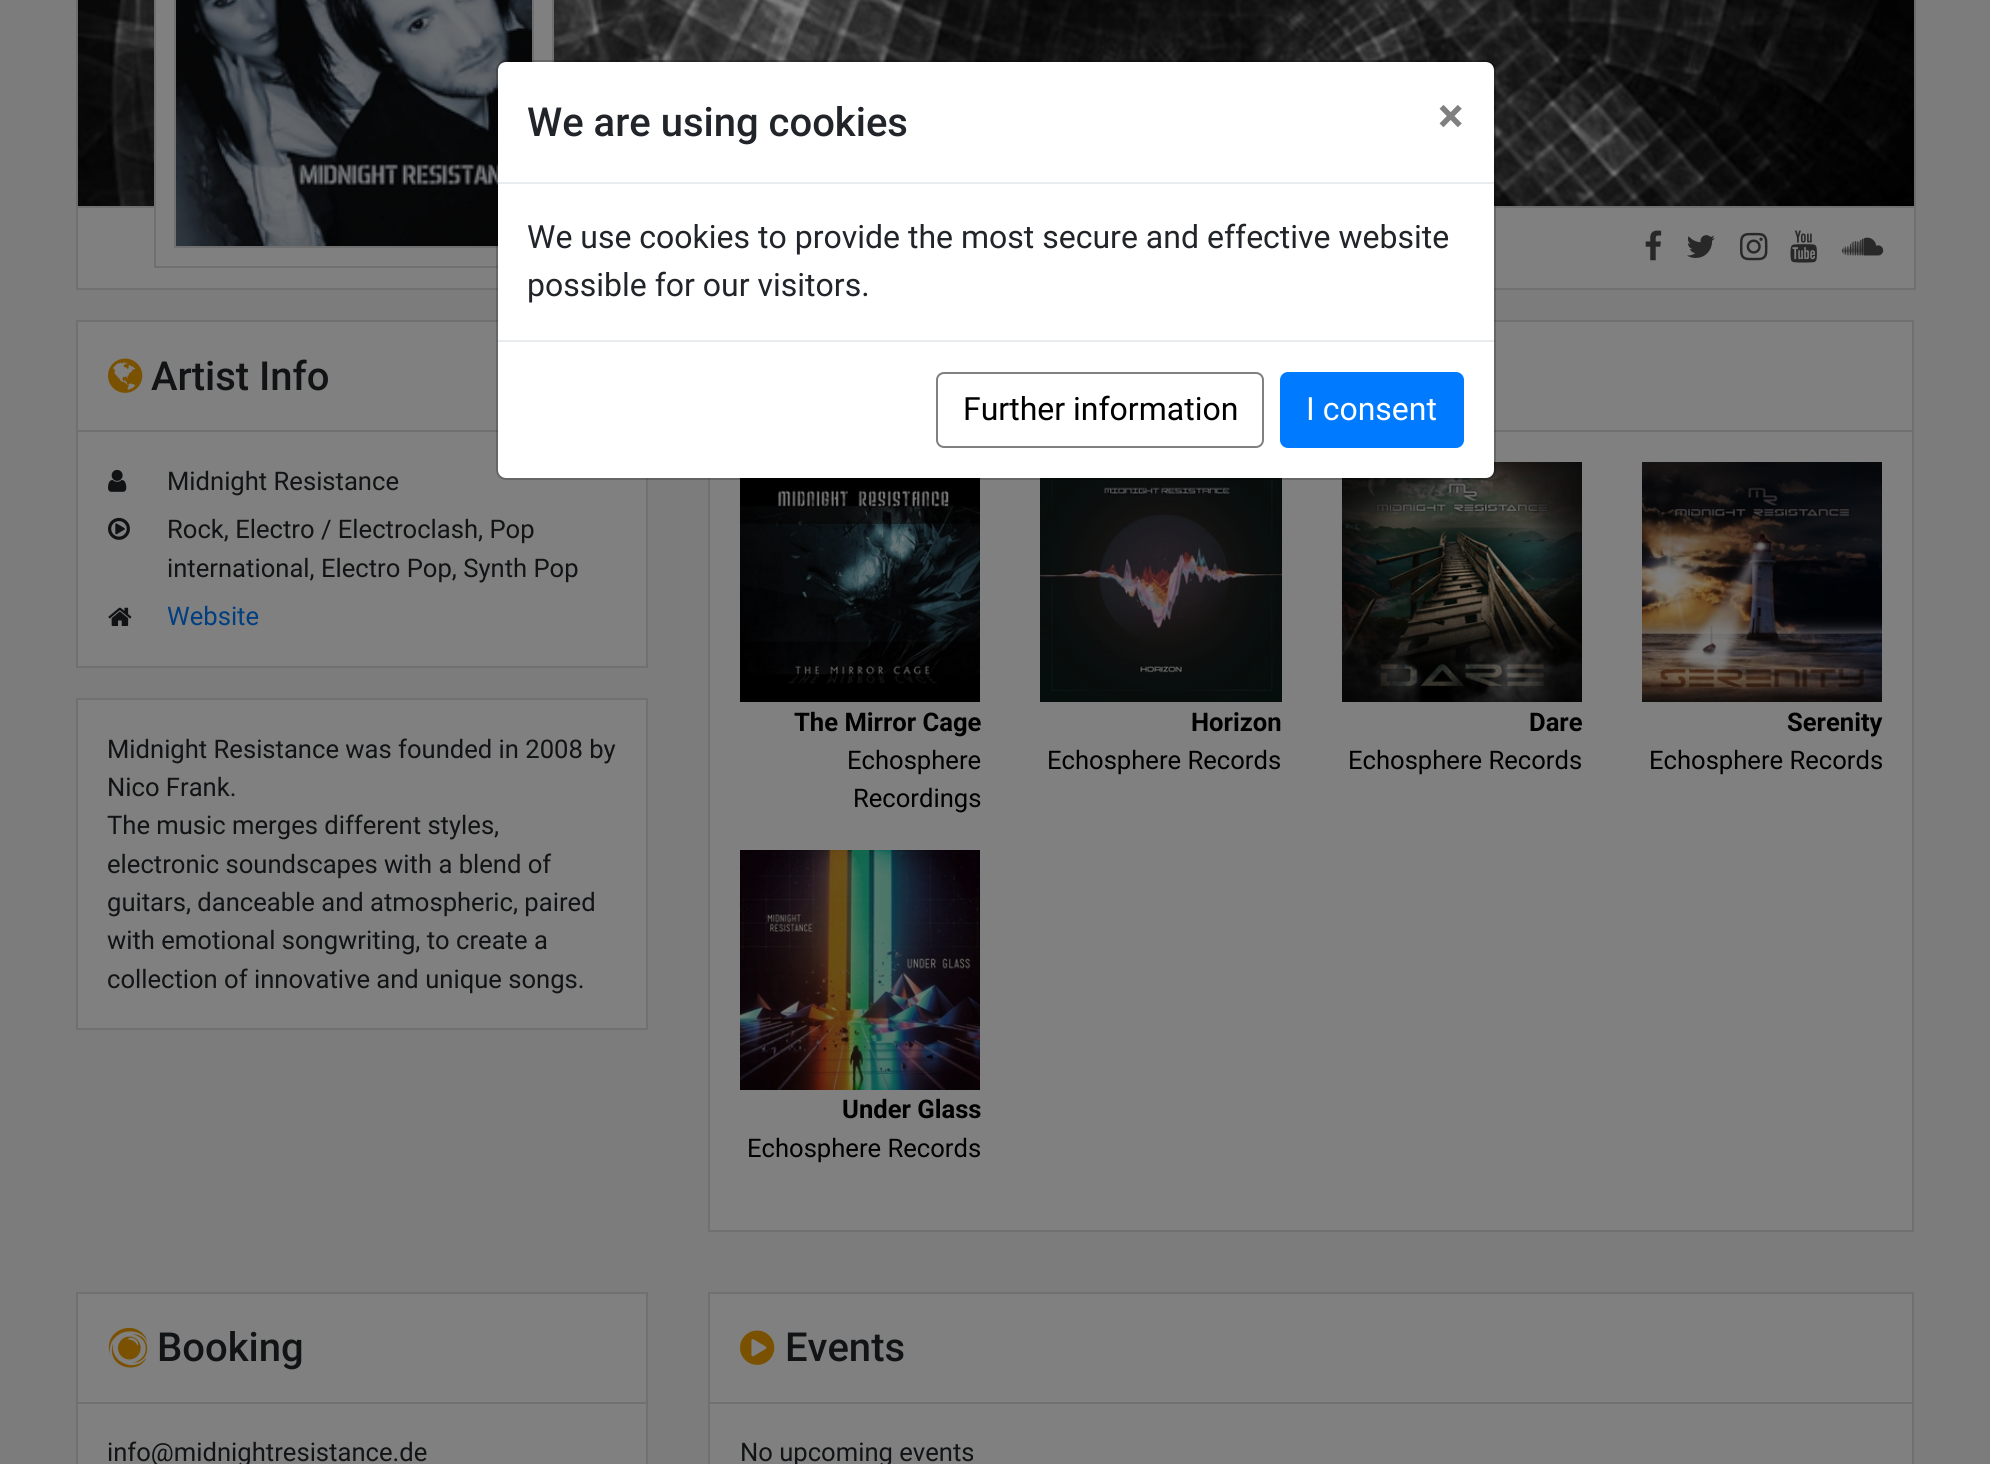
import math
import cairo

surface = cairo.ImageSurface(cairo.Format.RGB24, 1990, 1464)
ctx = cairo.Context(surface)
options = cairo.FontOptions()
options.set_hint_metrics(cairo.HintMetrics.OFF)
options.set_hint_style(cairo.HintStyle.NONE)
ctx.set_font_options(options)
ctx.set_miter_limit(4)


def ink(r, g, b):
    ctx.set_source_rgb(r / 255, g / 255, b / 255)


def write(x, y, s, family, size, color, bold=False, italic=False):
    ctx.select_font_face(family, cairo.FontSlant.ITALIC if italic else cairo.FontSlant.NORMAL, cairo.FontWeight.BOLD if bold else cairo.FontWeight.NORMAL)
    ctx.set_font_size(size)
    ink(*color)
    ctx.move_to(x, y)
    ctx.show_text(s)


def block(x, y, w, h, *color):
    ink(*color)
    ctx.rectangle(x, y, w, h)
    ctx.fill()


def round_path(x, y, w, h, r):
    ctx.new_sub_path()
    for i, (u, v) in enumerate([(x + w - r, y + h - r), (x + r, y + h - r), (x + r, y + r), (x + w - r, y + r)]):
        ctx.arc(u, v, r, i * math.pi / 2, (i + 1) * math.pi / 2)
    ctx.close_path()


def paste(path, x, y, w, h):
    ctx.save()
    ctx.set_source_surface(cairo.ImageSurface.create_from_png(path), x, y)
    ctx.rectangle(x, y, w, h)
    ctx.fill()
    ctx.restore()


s1 = dict(family="Roboto Medium", size=40, color=(33, 37, 41))
s2 = dict(family="Roboto", size=48, color=(128, 128, 128), bold=True)
s3 = dict(family="Roboto", size=32, color=(33, 37, 41))
s4 = dict(family="Roboto", size=32, color=(0, 0, 0))
s5 = dict(family="Roboto", size=32, color=(255, 255, 255))
s6 = dict(family="Roboto Medium", size=40, color=(17, 19, 21))
s7 = dict(family="Roboto", size=25.6, color=(17, 19, 21))
s8 = dict(family="Roboto", size=25.6, color=(0, 62, 128))
s9 = dict(family="Roboto", size=25.6, color=(0, 0, 0), bold=True)
s10 = dict(family="Roboto", size=25.6, color=(0, 0, 0))

ink(124, 124, 124)
ctx.paint()
ink(128, 128, 128)
ctx.rectangle(77, 207, 1838, 82)
ctx.fill_preserve()
ink(112, 112, 112)
ctx.stroke()
paste("pic7.png", 78, 0, 1836, 206)
block(156, 0, 396, 208, 128, 128, 128)
ctx.rectangle(155, -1, 398, 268)
ink(112, 112, 112)
ctx.stroke()
ctx.rectangle(175, -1, 358, 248)
ctx.stroke()
paste("pic1.png", 176, 0, 356, 246)
paste("pic2.png", 1645, 230, 17, 31)
paste("pic3.png", 1687, 235, 28, 23)
paste("pic4.png", 1740, 232, 28, 29)
paste("pic5.png", 1790, 230, 27, 33)
paste("pic6.png", 1842, 237, 42, 19)
block(76, 0, 2, 206, 108, 108, 108)
block(1914, 0, 2, 206, 108, 108, 108)
ink(128, 128, 128)
ctx.rectangle(77, 321, 570, 346)
ctx.fill_preserve()
ink(112, 112, 112)
ctx.stroke()
ink(128, 128, 128)
ctx.rectangle(709, 321, 1204, 910)
ctx.fill_preserve()
ink(112, 112, 112)
ctx.stroke()
paste("pic14.png", 1342, 462, 240, 240)
ink(255, 255, 255)
round_path(498, 62, 996, 416, 8)
ctx.fill()
block(78, 430, 420, 2, 112, 112, 112)
block(1494, 430, 418, 2, 112, 112, 112)
paste("pic12.png", 740, 478, 240, 224)
paste("pic13.png", 1040, 478, 242, 224)
round_path(497, 61, 998, 418, 9)
ctx.set_source_rgba(0, 0, 0, 0.2)
ctx.stroke()
block(498, 182, 996, 2, 233, 236, 239)
write(527, 136, "We are using cookies", **s1)
write(1438, 132, "×", **s2)
write(527, 248, "We use cookies to provide the most secure and effective website", **s3)
write(527, 296, "possible for our visitors.", **s3)
block(498, 340, 996, 2, 233, 236, 239)
round_path(937, 373, 326, 74, 7)
ink(128, 128, 128)
ctx.stroke()
write(963, 420, "Further information", **s4)
ink(0, 123, 255)
round_path(1281, 373, 182, 74, 7)
ctx.fill_preserve()
ctx.stroke()
write(1306, 420, "I consent", **s5)
paste("pic8.png", 108, 358, 35, 35)
write(151, 390, "Artist Info", **s6)
paste("pic9.png", 108, 469, 19, 23)
write(167, 490, "Midnight Resistance", **s7)
paste("pic10.png", 108, 517, 22, 23)
write(167, 538, "Rock, Electro / Electroclash, Pop", **s7)
write(167, 577, "international, Electro Pop, Synth Pop", **s7)
paste("pic11.png", 108, 607, 24, 19)
write(167, 625, "Website", **s8)
ink(128, 128, 128)
ctx.rectangle(77, 699, 570, 330)
ctx.fill_preserve()
ink(112, 112, 112)
ctx.stroke()
write(107, 758, "Midnight Resistance was founded in 2008 by", **s7)
write(107, 796, "Nico Frank.", **s7)
write(107, 834, "The music merges different styles,", **s7)
write(107, 873, "electronic soundscapes with a blend of", **s7)
write(107, 911, "guitars, danceable and atmospheric, paired", **s7)
write(107, 949, "with emotional songwriting, to create a", **s7)
write(107, 988, "collection of innovative and unique songs.", **s7)
write(794, 731, "The Mirror Cage", **s9)
write(847, 769, "Echosphere", **s10)
write(853, 807, "Recordings", **s10)
write(1191, 731, "Horizon", **s9)
write(1047, 769, "Echosphere Records", **s10)
write(1529, 731, "Dare", **s9)
write(1348, 769, "Echosphere Records", **s10)
paste("pic15.png", 1642, 462, 240, 240)
write(1787, 731, "Serenity", **s9)
write(1649, 769, "Echosphere Records", **s10)
paste("pic16.png", 740, 850, 240, 240)
write(842, 1118, "Under Glass", **s9)
write(747, 1157, "Echosphere Records", **s10)
ink(128, 128, 128)
ctx.rectangle(77, 1293, 570, 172)
ctx.fill_preserve()
ink(112, 112, 112)
ctx.stroke()
paste("pic17.png", 108, 1327, 40, 41)
write(157, 1361, "Booking", **s6)
block(78, 1402, 568, 2, 112, 112, 112)
write(107, 1461, "info@midnightresistance.de", **s7)
ink(128, 128, 128)
ctx.rectangle(709, 1293, 1204, 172)
ctx.fill_preserve()
ink(112, 112, 112)
ctx.stroke()
paste("pic18.png", 740, 1330, 35, 35)
write(785, 1361, "Events", **s6)
block(710, 1402, 1202, 2, 112, 112, 112)
write(740, 1461, "No upcoming events", **s7)
surface.write_to_png("screenshot.png")
